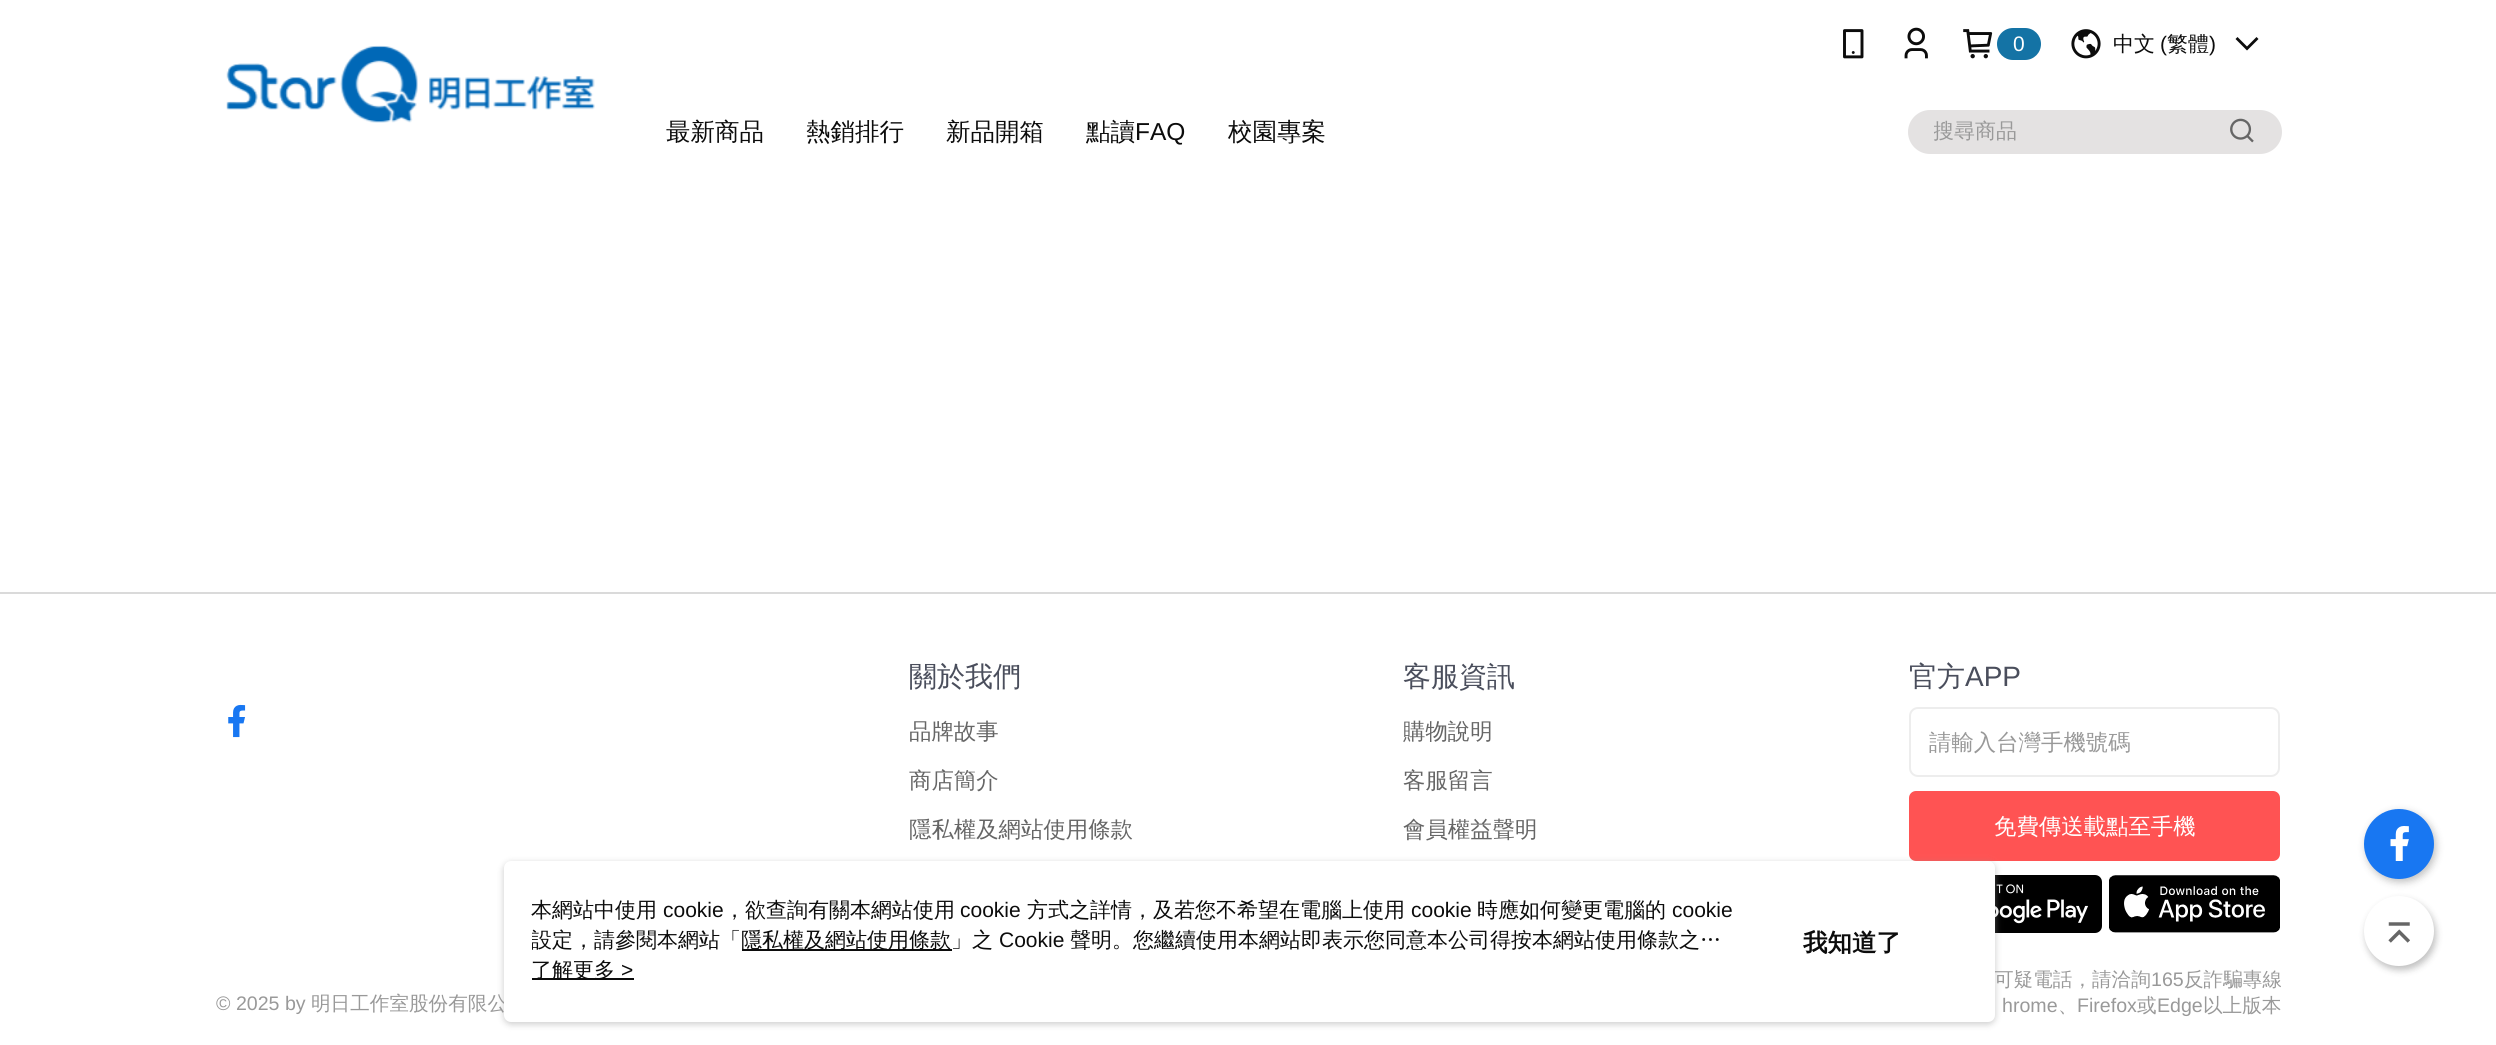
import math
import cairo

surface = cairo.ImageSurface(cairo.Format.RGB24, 2496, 1045)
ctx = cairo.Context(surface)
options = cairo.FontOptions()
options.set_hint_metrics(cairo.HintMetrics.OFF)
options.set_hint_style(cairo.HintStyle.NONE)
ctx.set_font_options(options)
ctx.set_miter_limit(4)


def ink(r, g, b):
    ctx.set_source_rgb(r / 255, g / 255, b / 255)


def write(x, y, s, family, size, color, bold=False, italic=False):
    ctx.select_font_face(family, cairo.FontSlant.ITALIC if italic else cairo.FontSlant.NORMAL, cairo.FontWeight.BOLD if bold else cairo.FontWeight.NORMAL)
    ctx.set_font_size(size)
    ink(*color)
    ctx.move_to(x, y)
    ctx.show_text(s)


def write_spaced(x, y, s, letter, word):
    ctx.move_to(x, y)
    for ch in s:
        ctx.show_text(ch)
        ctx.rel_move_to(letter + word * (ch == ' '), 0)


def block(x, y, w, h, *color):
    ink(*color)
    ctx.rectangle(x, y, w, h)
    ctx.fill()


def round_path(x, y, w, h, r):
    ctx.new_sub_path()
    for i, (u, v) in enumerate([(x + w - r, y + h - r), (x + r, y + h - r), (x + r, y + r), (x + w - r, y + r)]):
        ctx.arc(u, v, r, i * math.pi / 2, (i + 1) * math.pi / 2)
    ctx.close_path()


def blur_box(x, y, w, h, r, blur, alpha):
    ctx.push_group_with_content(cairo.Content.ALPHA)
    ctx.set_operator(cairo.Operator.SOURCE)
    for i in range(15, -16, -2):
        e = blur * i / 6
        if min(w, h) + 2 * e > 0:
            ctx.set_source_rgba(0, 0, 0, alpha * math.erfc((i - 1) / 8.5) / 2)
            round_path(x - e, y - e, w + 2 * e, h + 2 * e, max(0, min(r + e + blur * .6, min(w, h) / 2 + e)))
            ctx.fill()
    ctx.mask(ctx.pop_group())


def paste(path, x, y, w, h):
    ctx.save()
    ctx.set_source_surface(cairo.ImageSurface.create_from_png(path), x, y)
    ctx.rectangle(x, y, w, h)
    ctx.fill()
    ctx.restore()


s1 = dict(family="Liberation Sans", size=21, color=(255, 255, 255))
s2 = dict(family="WenQuanYi Zen Hei Medium", size=21, color=(12, 12, 12))
s3 = dict(family="Liberation Sans", size=21, color=(12, 12, 12))
s4 = dict(family="WenQuanYi Zen Hei Medium", size=24.5, color=(12, 12, 12))
s5 = dict(family="Liberation Sans", size=24.5, color=(12, 12, 12))
s6 = dict(family="WenQuanYi Zen Hei Medium", size=21, color=(153, 153, 153))
s7 = dict(family="WenQuanYi Zen Hei Medium", size=28, color=(74, 78, 92))
s8 = dict(family="WenQuanYi Zen Hei Medium", size=22.4, color=(102, 102, 102))
s9 = dict(family="Liberation Sans", size=28, color=(74, 78, 92))
s10 = dict(family="WenQuanYi Zen Hei Medium", size=22.4, color=(153, 153, 153))
s11 = dict(family="WenQuanYi Zen Hei Medium", size=22.4, color=(255, 255, 255))
s12 = dict(family="WenQuanYi Zen Hei Medium", size=19.6, color=(153, 153, 153))
s13 = dict(family="Liberation Sans", size=19.6, color=(153, 153, 153))
s14 = dict(family="WenQuanYi Zen Hei", size=24.5, color=(12, 12, 12), bold=True)

ink(255, 255, 255)
ctx.paint()
paste("pic1.png", 226, 45, 369, 78)
paste("pic2.png", 1843, 29, 21, 30)
paste("pic3.png", 1904, 27, 24, 32)
paste("pic4.png", 1963, 29, 30, 30)
ink(20, 115, 165)
round_path(1997, 28, 44, 32, 16)
ctx.fill()
write(2013, 51, "0", **s1)
paste("pic5.png", 2071, 29, 30, 30)
write(2113, 51, "中文", **s2)
write(2160, 51, "(", **s3)
write(2167, 51, "繁體", **s2)
write(2209, 51, ")", **s3)
ctx.new_path()
ctx.move_to(2237.5, 37)
ctx.line_to(2235.5, 39)
ctx.line_to(2247, 50.5)
ctx.line_to(2258.5, 39)
ctx.line_to(2256.5, 37)
ctx.line_to(2247, 46.5)
ctx.close_path()
ctx.fill()
write(666, 140, "最新商品", **s4)
write(806, 140, "熱銷排行", **s4)
write(946, 140, "新品開箱", **s4)
write(1086, 140, "點讀", **s4)
write(1135, 140, "FAQ", **s5)
write(1228, 140, "校園專案", **s4)
ink(228, 226, 226)
round_path(1908, 110, 374, 44, 22)
ctx.fill()
ctx.save()
ctx.rectangle(1934, 117, 266, 30)
ctx.clip()
write(1933, 138, "搜尋商品", **s6)
ctx.restore()
paste("pic6.png", 2230, 118, 24, 25)
ink(0, 0, 0)
blur_box(2366, 812, 70, 70, 35, 4, 0.25)
ink(24, 119, 242)
ctx.arc(2399, 844, 35, 0, 2 * math.pi)
ctx.fill()
paste("pic7.png", 2390, 826, 19, 35)
ink(0, 0, 0)
blur_box(2366, 900, 70, 70, 35, 3.5, 0.25)
ink(255, 255, 255)
ctx.arc(2399, 931, 35, 0, 2 * math.pi)
ctx.fill()
paste("pic8.png", 2388, 922, 22, 21)
block(0, 592, 2496, 2, 218, 218, 218)
paste("pic9.png", 228, 704, 18, 34)
write(909, 686, "關於我們", **s7)
write(909, 739, "品牌故事", **s8)
write(909, 788, "商店簡介", **s8)
write(909, 837, "隱私權及網站使用條款", **s8)
write(1403, 686, "客服資訊", **s7)
write(1403, 739, "購物說明", **s8)
write(1403, 788, "客服留言", **s8)
write(1403, 837, "會員權益聲明", **s8)
write(1909, 686, "官方", **s7)
write(1965, 686, "APP", **s9)
round_path(1910, 708, 369, 68, 8)
ink(237, 237, 237)
ctx.stroke()
write(1929, 750, "請輸入台灣手機號碼", **s10)
ink(255, 83, 83)
round_path(1909, 791, 371, 70, 7)
ctx.fill()
write(1994, 834, "免費傳送載點至手機", **s11)
paste("pic10.png", 1995, 875, 107, 58)
paste("pic11.png", 2109, 875, 171, 58)
write(1994, 986, "可疑電話，請洽詢", **s12)
write(2151, 986, "165", **s13)
write(2184, 986, "反詐騙專線", **s12)
write(216, 1010, "© 2025 by", **s13)
write(311, 1010, "明日工作室股份有限公", **s12)
ctx.select_font_face("Liberation Sans")
write_spaced(2002, 1012, "hrome", 0, -1)
write(2058, 1012, "、", **s12)
write(2077, 1012, "Firefox", **s13)
write(2137, 1012, "或", **s12)
write(2157, 1012, "Edge", **s13)
write(2203, 1012, "以上版本", **s12)
ink(151, 151, 151)
blur_box(504, 863, 1491, 161, 7, 3.5, 0.5)
ink(255, 255, 255)
round_path(504, 861, 1491, 161, 7)
ctx.fill()
write(531, 917, "本網站中使用", **s2)
write(663, 917, "cookie", **s3)
write(724, 917, "，欲查詢有關本網站使用", **s2)
write(960, 917, "cookie", **s3)
write(1027, 917, "方式之詳情，及若您不希望在電腦上使用", **s2)
write(1411, 917, "cookie", **s3)
write(1477, 917, "時應如何變更電腦的", **s2)
write(1672, 917, "cookie", **s3)
ctx.save()
ctx.rectangle(532, 896, 1208, 60)
ctx.clip()
write(531, 947, "設定，請參閱本網站「", **s2)
ctx.restore()
block(742, 949, 210, 2, 12, 12, 12)
write(741, 947, "隱私權及網站使用條款」之", **s2)
write(999, 947, "Cookie", **s3)
write(1070, 947, "聲明。您繼續使用本網站即表示您同意本公司得按本網站使用條款之…", **s2)
block(532, 978, 102, 2, 12, 12, 12)
write(531, 977, "了解更多", **s2)
write(621, 977, ">", **s3)
write(1803, 951, "我知道了", **s14)
surface.write_to_png("screenshot.png")
